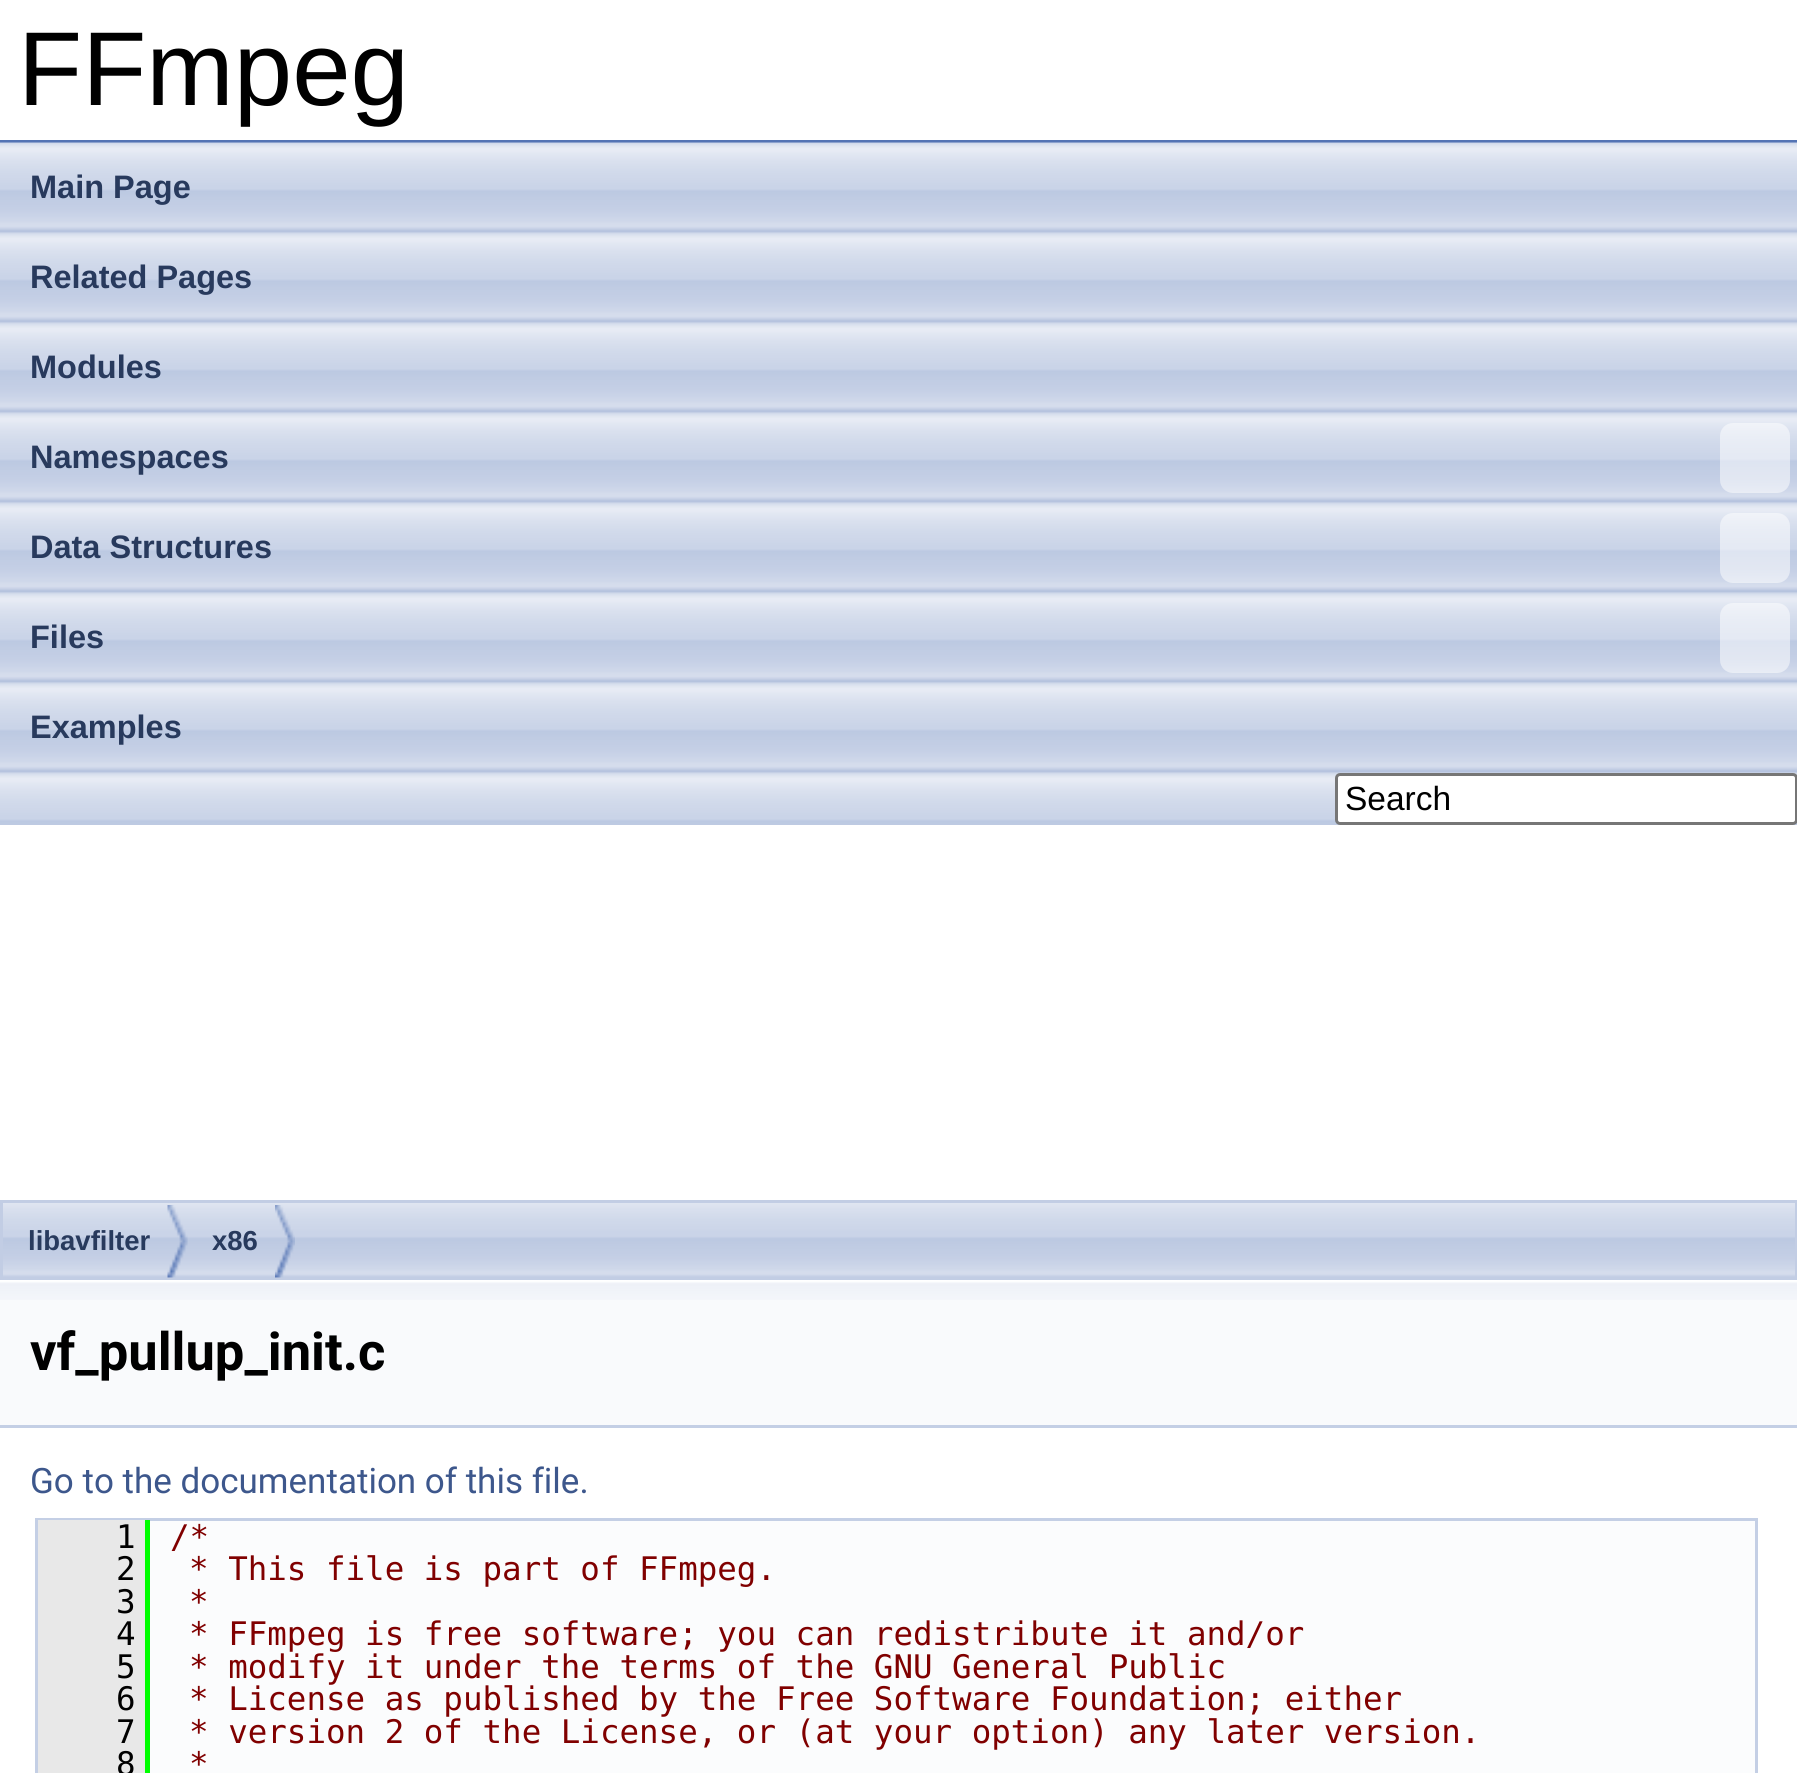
import math
import cairo

surface = cairo.ImageSurface(cairo.Format.RGB24, 1797, 1773)
ctx = cairo.Context(surface)
options = cairo.FontOptions()
options.set_hint_metrics(cairo.HintMetrics.OFF)
options.set_hint_style(cairo.HintStyle.NONE)
ctx.set_font_options(options)
ctx.set_miter_limit(4)


def ink(r, g, b):
    ctx.set_source_rgb(r / 255, g / 255, b / 255)


def write(x, y, s, family, size, color, bold=False, italic=False):
    ctx.select_font_face(family, cairo.FontSlant.ITALIC if italic else cairo.FontSlant.NORMAL, cairo.FontWeight.BOLD if bold else cairo.FontWeight.NORMAL)
    ctx.set_font_size(size)
    ink(*color)
    ctx.move_to(x, y)
    ctx.show_text(s)


def block(x, y, w, h, *color):
    ink(*color)
    ctx.rectangle(x, y, w, h)
    ctx.fill()


def round_path(x, y, w, h, r):
    ctx.new_sub_path()
    for i, (u, v) in enumerate([(x + w - r, y + h - r), (x + r, y + h - r), (x + r, y + r), (x + w - r, y + r)]):
        ctx.arc(u, v, r, i * math.pi / 2, (i + 1) * math.pi / 2)
    ctx.close_path()


def paste(path, x, y, w, h):
    ctx.save()
    ctx.set_source_surface(cairo.ImageSurface.create_from_png(path), x, y)
    ctx.rectangle(x, y, w, h)
    ctx.fill()
    ctx.restore()


s1 = dict(family="Liberation Sans", size=105, color=(0, 0, 0))
s2 = dict(family="Liberation Sans", size=32.5, color=(40, 58, 93), bold=True)
s3 = dict(family="Liberation Sans", size=33.5, color=(0, 0, 0))
s4 = dict(family="Liberation Sans", size=27.5, color=(40, 58, 93), bold=True)
s5 = dict(family="Roboto", size=52.5, color=(0, 0, 0), bold=True)
s6 = dict(family="Roboto", size=35, color=(61, 87, 140))
s7 = dict(family="DejaVu Sans Mono", size=32.5, color=(0, 0, 0))
s8 = dict(family="DejaVu Sans Mono", size=32.5, color=(128, 0, 0))

ink(255, 255, 255)
ctx.paint()
block(0, 140, 1797, 3, 83, 115, 180)
write(18, 105, "FFmpeg", **s1)
paste("pic1.png", 0, 142, 1797, 683)
write(30, 198, "Main Page", **s2)
write(30, 288, "Related Pages", **s2)
write(30, 378, "Modules", **s2)
write(30, 468, "Namespaces", **s2)
ctx.set_source_rgba(1, 1, 1, 0.5)
round_path(1720, 423, 70, 70, 13)
ctx.fill()
write(30, 558, "Data Structures", **s2)
ctx.set_source_rgba(1, 1, 1, 0.5)
round_path(1720, 513, 70, 70, 13)
ctx.fill()
write(30, 648, "Files", **s2)
ctx.set_source_rgba(1, 1, 1, 0.5)
round_path(1720, 603, 70, 70, 13)
ctx.fill()
write(30, 738, "Examples", **s2)
ink(255, 255, 255)
round_path(1336.5, 774.5, 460, 49, 3.5)
ctx.fill_preserve()
ink(118, 118, 118)
ctx.set_line_width(3)
ctx.stroke()
write(1345, 810, "Search", **s3)
paste("pic2.png", 3, 1203, 1792, 74)
ctx.rectangle(1.5, 1201.5, 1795, 77)
ink(194, 205, 228)
ctx.stroke()
paste("pic3.png", 167, 1205, 21, 73)
write(28, 1250, "libavfilter", **s4)
paste("pic4.png", 275, 1205, 20, 73)
write(212, 1250, "x86", **s4)
block(0, 1300, 1797, 125, 249, 250, 252)
paste("pic5.png", 0, 1280, 1797, 20)
block(0, 1425, 1797, 3, 196, 207, 229)
write(30, 1370, "vf_pullup_init.c", **s5)
write(30, 1493, "Go to the documentation of this file.", **s6)
block(150, 1521, 1605, 252, 251, 252, 253)
ctx.rectangle(36.5, 1519.5, 1720, 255)
ink(196, 207, 229)
ctx.stroke()
block(38, 1520, 107, 253, 232, 232, 232)
write(116, 1548, "1", **s7)
block(145, 1520, 5, 253, 0, 255, 0)
write(170, 1548, "/*", **s8)
write(116, 1580, "2", **s7)
write(189, 1580, "* This file is part of FFmpeg.", **s8)
write(116, 1613, "3", **s7)
write(189, 1613, "*", **s8)
write(116, 1645, "4", **s7)
write(189, 1645, "* FFmpeg is free software; you can redistribute it and/or", **s8)
write(116, 1678, "5", **s7)
write(189, 1678, "* modify it under the terms of the GNU General Public", **s8)
write(116, 1710, "6", **s7)
write(189, 1710, "* License as published by the Free Software Foundation; either", **s8)
write(116, 1743, "7", **s7)
write(189, 1743, "* version 2 of the License, or (at your option) any later version.", **s8)
write(116, 1775, "8", **s7)
write(189, 1775, "*", **s8)
surface.write_to_png("screenshot.png")
